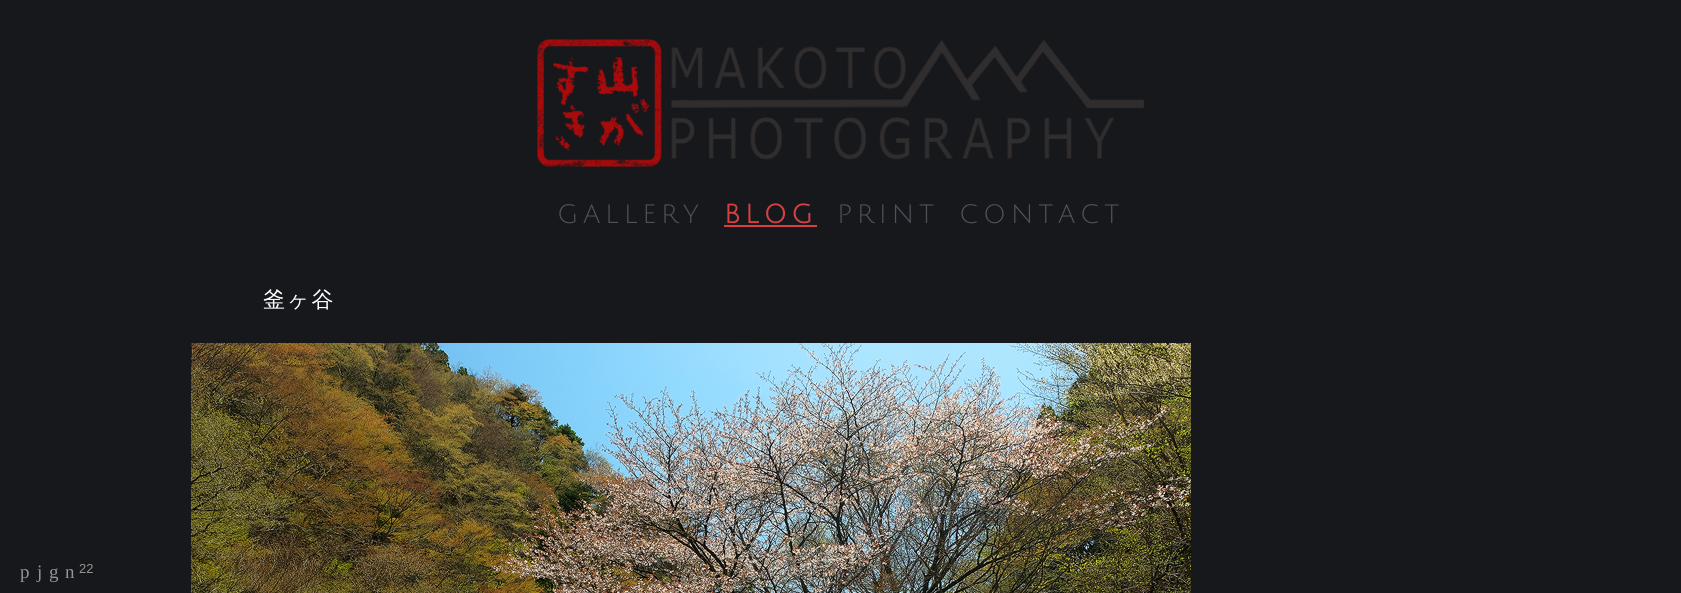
import math
import cairo

surface = cairo.ImageSurface(cairo.Format.RGB24, 1681, 593)
ctx = cairo.Context(surface)
options = cairo.FontOptions()
options.set_hint_metrics(cairo.HintMetrics.OFF)
options.set_hint_style(cairo.HintStyle.NONE)
ctx.set_font_options(options)
ctx.set_miter_limit(4)


def ink(r, g, b):
    ctx.set_source_rgb(r / 255, g / 255, b / 255)


def write(x, y, s, family, size, color, bold=False, italic=False):
    ctx.select_font_face(family, cairo.FontSlant.ITALIC if italic else cairo.FontSlant.NORMAL, cairo.FontWeight.BOLD if bold else cairo.FontWeight.NORMAL)
    ctx.set_font_size(size)
    ink(*color)
    ctx.move_to(x, y)
    ctx.show_text(s)


def write_spaced(x, y, s, letter, word):
    ctx.move_to(x, y)
    for ch in s:
        ctx.show_text(ch)
        ctx.rel_move_to(letter + word * (ch == ' '), 0)


def block(x, y, w, h, *color):
    ink(*color)
    ctx.rectangle(x, y, w, h)
    ctx.fill()


def paste(path, x, y, w, h):
    ctx.save()
    ctx.set_source_surface(cairo.ImageSurface.create_from_png(path), x, y)
    ctx.rectangle(x, y, w, h)
    ctx.fill()
    ctx.restore()


s1 = dict(family="Liberation Serif", size=19, color=(148, 148, 148))
s2 = dict(family="Liberation Sans", size=13, color=(148, 148, 148))

ink(22, 24, 28)
ctx.paint()
paste("pic1.png", 537, 39, 607, 128)
ctx.select_font_face("Julius Sans One")
ctx.set_font_size(26)
ink(81, 81, 92)
write_spaced(557, 223, "GALLERY", 4.75, 0)
ctx.select_font_face("Julius Sans One", cairo.FontSlant.NORMAL, cairo.FontWeight.BOLD)
ink(215, 63, 64)
write_spaced(724, 223, "BLOG", 4.75, 0)
block(724, 225, 93, 2, 215, 63, 64)
ctx.select_font_face("Julius Sans One")
ink(81, 81, 92)
write_spaced(837, 223, "PRINT", 4.75, 0)
write_spaced(959, 223, "CONTACT", 4.75, 0)
ctx.select_font_face("WenQuanYi Zen Hei Medium")
ctx.set_font_size(22)
ink(255, 255, 255)
write_spaced(263, 307, "釜ヶ谷", 2, 0)
paste("pic2.png", 191, 343, 1000, 250)
write(20, 578, "p", **s1)
write(37, 578, "j", **s1)
write(49, 578, "g", **s1)
write(65, 578, "n", **s1)
write(79, 573, "22", **s2)
surface.write_to_png("screenshot.png")
